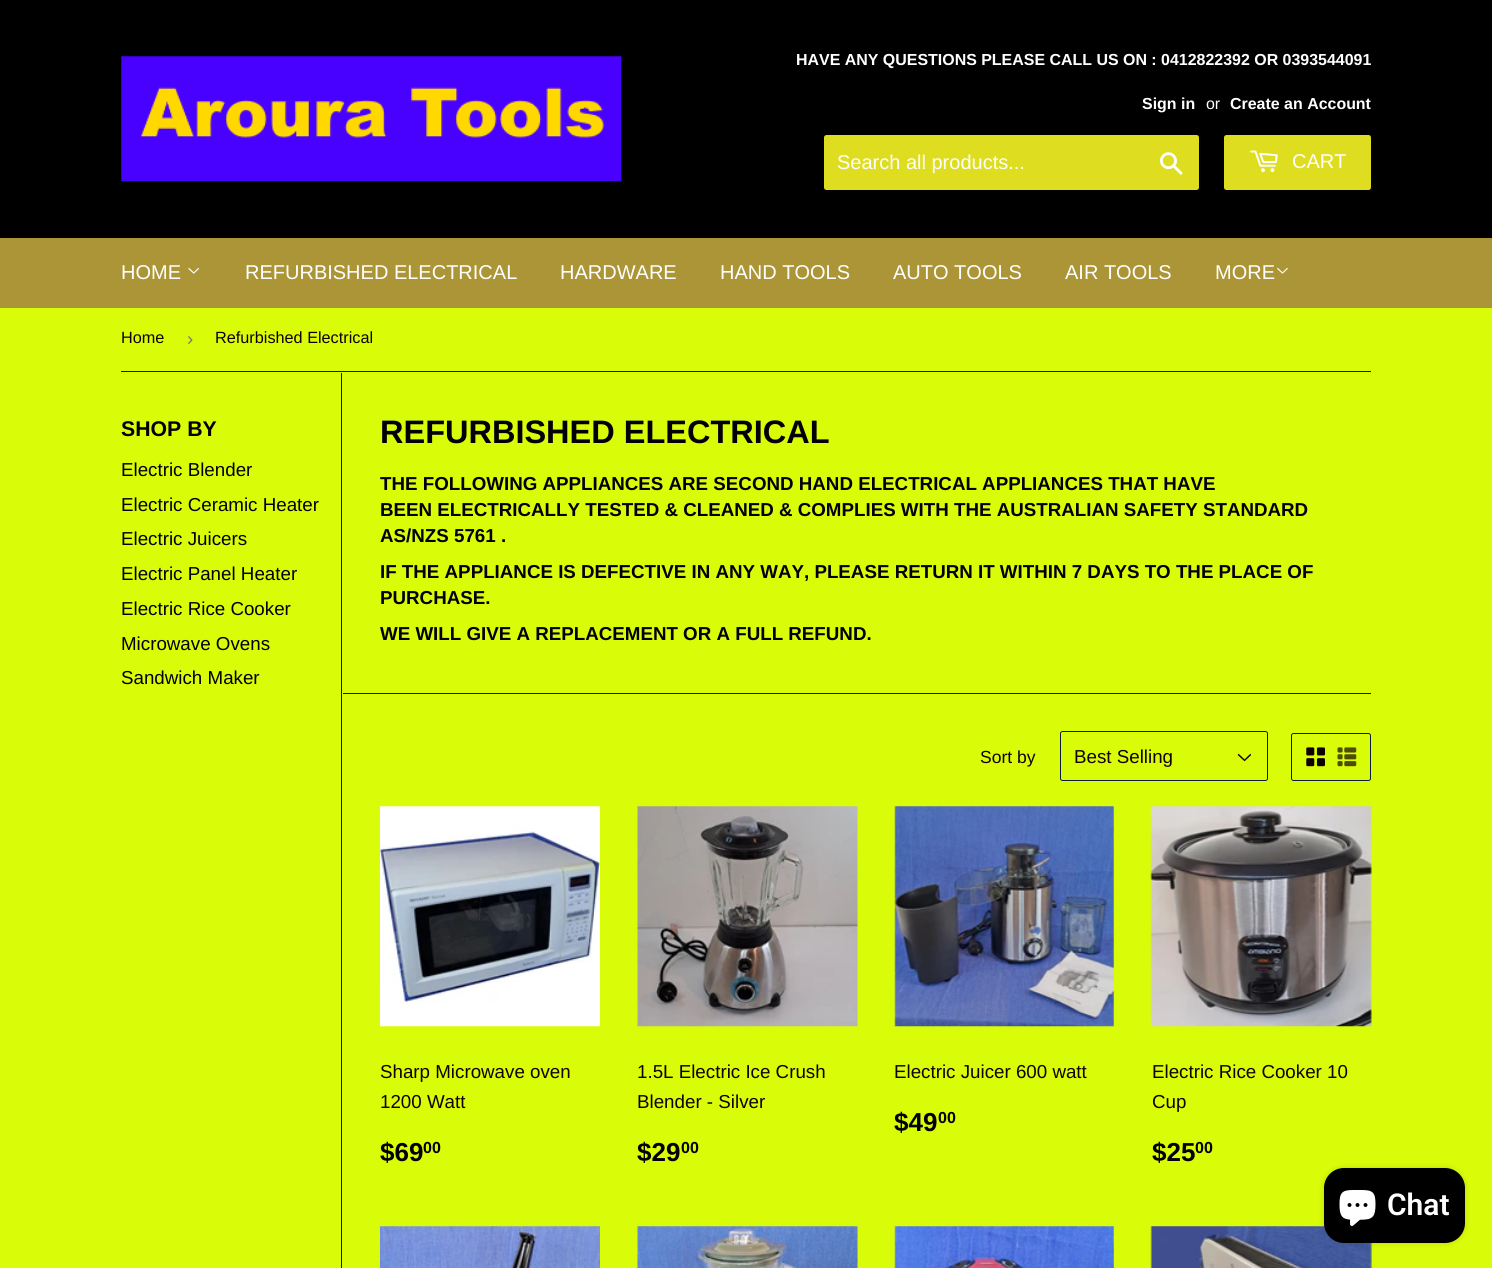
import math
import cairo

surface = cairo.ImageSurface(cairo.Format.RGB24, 1492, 1268)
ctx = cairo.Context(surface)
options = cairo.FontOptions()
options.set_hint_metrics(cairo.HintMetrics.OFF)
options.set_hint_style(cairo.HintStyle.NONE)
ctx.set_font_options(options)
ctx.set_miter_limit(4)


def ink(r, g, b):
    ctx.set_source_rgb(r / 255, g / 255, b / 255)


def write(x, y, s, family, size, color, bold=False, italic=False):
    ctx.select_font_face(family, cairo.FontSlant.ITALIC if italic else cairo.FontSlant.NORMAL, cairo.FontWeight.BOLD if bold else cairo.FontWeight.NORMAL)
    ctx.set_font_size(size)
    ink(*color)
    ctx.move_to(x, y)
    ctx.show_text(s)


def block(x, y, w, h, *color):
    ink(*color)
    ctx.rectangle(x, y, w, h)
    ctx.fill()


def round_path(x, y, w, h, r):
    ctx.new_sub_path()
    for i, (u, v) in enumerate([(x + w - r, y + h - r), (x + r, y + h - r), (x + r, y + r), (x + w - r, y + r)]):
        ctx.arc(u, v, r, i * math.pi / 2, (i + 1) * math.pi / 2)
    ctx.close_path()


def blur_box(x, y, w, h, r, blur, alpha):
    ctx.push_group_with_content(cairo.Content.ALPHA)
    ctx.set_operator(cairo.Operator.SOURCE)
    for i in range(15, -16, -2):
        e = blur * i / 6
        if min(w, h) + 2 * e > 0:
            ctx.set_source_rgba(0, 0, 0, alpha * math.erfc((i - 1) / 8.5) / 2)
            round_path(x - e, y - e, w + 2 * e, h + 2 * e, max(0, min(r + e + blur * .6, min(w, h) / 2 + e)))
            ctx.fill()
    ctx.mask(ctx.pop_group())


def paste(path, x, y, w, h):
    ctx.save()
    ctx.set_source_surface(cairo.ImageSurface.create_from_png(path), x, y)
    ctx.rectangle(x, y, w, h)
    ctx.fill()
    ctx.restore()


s1 = dict(family="Liberation Sans", size=15.95, color=(255, 255, 255), bold=True)
s2 = dict(family="Liberation Sans", size=15.95, color=(255, 255, 255))
s3 = dict(family="Liberation Sans", size=20, color=(255, 255, 255))
s4 = dict(family="Liberation Sans", size=16.25, color=(16, 1, 1))
s5 = dict(family="Liberation Sans", size=18.75, color=(118, 118, 118))
s6 = dict(family="Liberation Sans", size=21.25, color=(1, 0, 6), bold=True)
s7 = dict(family="Liberation Sans", size=18.75, color=(1, 0, 6))
s8 = dict(family="Liberation Sans", size=32.5, color=(1, 0, 6), bold=True)
s9 = dict(family="Liberation Sans", size=18.75, color=(1, 0, 6), bold=True)
s10 = dict(family="Liberation Sans", size=17.5, color=(16, 1, 1))
s11 = dict(family="Liberation Sans", size=18.75, color=(16, 1, 1))
s12 = dict(family="Liberation Sans", size=26, color=(1, 0, 6), bold=True)
s13 = dict(family="Liberation Sans", size=16, color=(1, 0, 6), bold=True)
s14 = dict(family="Roboto SemiBold", size=30, color=(255, 255, 255))

ink(217, 252, 9)
ctx.paint()
block(0, 0, 1492, 238, 0, 0, 0)
paste("pic1.png", 121, 56, 501, 126)
write(796, 65, "HAVE ANY QUESTIONS PLEASE CALL US ON : 0412822392 OR 0393544091", **s1)
write(1142, 109, "Sign in", **s1)
write(1206, 109, "or", **s2)
write(1230, 109, "Create an Account", **s1)
ink(223, 221, 32)
round_path(824, 135, 375, 55, 2.5)
ctx.fill()
write(837, 169, "Search all products...", **s3)
paste("pic2.png", 1160, 152, 23, 23)
ink(223, 221, 32)
round_path(1224, 135, 147, 55, 2.5)
ctx.fill()
paste("pic3.png", 1250, 150, 28, 23)
write(1292, 168, "CART", **s3)
block(0, 238, 1492, 70, 172, 149, 54)
write(121, 279, "HOME", **s3)
paste("pic4.png", 188, 267, 11, 7)
write(245, 279, "REFURBISHED ELECTRICAL", **s3)
write(560, 279, "HARDWARE", **s3)
write(720, 279, "HAND TOOLS", **s3)
write(893, 279, "AUTO TOOLS", **s3)
write(1065, 279, "AIR TOOLS", **s3)
write(1215, 279, "MORE", **s3)
paste("pic5.png", 1277, 267, 11, 7)
block(121, 371, 1250, 1, 9, 28, 69)
write(121, 343, "Home", **s4)
write(187, 345, "›", **s5)
write(215, 343, "Refurbished Electrical", **s4)
write(121, 436, "SHOP BY", **s6)
write(121, 476, "Electric Blender", **s7)
write(121, 511, "Electric Ceramic Heater", **s7)
write(121, 545, "Electric Juicers", **s7)
write(121, 580, "Electric Panel Heater", **s7)
write(121, 615, "Electric Rice Cooker", **s7)
write(121, 650, "Microwave Ovens", **s7)
write(121, 684, "Sandwich Maker", **s7)
block(341, 373, 1, 895, 9, 28, 69)
write(380, 443, "REFURBISHED ELECTRICAL", **s8)
write(380, 490, "THE FOLLOWING APPLIANCES ARE SECOND HAND ELECTRICAL APPLIANCES THAT HAVE", **s9)
write(380, 516, "BEEN ELECTRICALLY TESTED & CLEANED & COMPLIES WITH THE AUSTRALIAN SAFETY STANDARD", **s9)
write(380, 542, "AS/NZS 5761 .", **s9)
write(380, 578, "IF THE APPLIANCE IS DEFECTIVE IN ANY WAY, PLEASE RETURN IT WITHIN 7 DAYS TO THE PLACE OF", **s9)
write(380, 604, "PURCHASE.", **s9)
write(380, 640, "WE WILL GIVE A REPLACEMENT OR A FULL REFUND.", **s9)
block(343, 693, 1028, 1, 9, 28, 69)
write(980, 763, "Sort by", **s10)
paste("pic6.png", 1237, 753, 14, 9)
round_path(1060.5, 731.5, 207, 49, 2)
ink(9, 28, 69)
ctx.set_line_width(1)
ctx.stroke()
write(1074, 763, "Best Selling", **s11)
round_path(1291.5, 733.5, 79, 47, 2)
ink(9, 28, 69)
ctx.stroke()
paste("pic7.png", 1306, 747, 19, 20)
paste("pic8.png", 1337, 747, 20, 20)
paste("pic9.png", 380, 806, 220, 221)
write(380, 1078, "Sharp Microwave oven", **s11)
write(380, 1108, "1200 Watt", **s11)
write(380, 1161, "$69", **s12)
write(423, 1153, "00", **s13)
paste("pic10.png", 637, 806, 221, 221)
write(637, 1078, "1.5L Electric Ice Crush", **s11)
write(637, 1108, "Blender - Silver", **s11)
write(637, 1161, "$29", **s12)
write(681, 1153, "00", **s13)
paste("pic11.png", 894, 806, 220, 221)
write(894, 1078, "Electric Juicer 600 watt", **s11)
write(894, 1131, "$49", **s12)
write(938, 1123, "00", **s13)
paste("pic12.png", 1150, 806, 222, 221)
write(1152, 1078, "Electric Rice Cooker 10", **s11)
write(1152, 1108, "Cup", **s11)
write(1152, 1161, "$25", **s12)
write(1195, 1153, "00", **s13)
paste("pic13.png", 380, 1226, 220, 42)
paste("pic14.png", 637, 1226, 221, 42)
paste("pic15.png", 894, 1226, 220, 42)
paste("pic16.png", 1150, 1226, 222, 42)
ink(0, 0, 0)
blur_box(1324, 1168, 141, 75, 20, 3, 0.15)
ink(0, 0, 0)
round_path(1324, 1168, 141, 75, 20)
ctx.fill()
paste("pic17.png", 1339, 1190, 37, 36)
write(1387, 1215, "Chat", **s14)
surface.write_to_png("screenshot.png")
